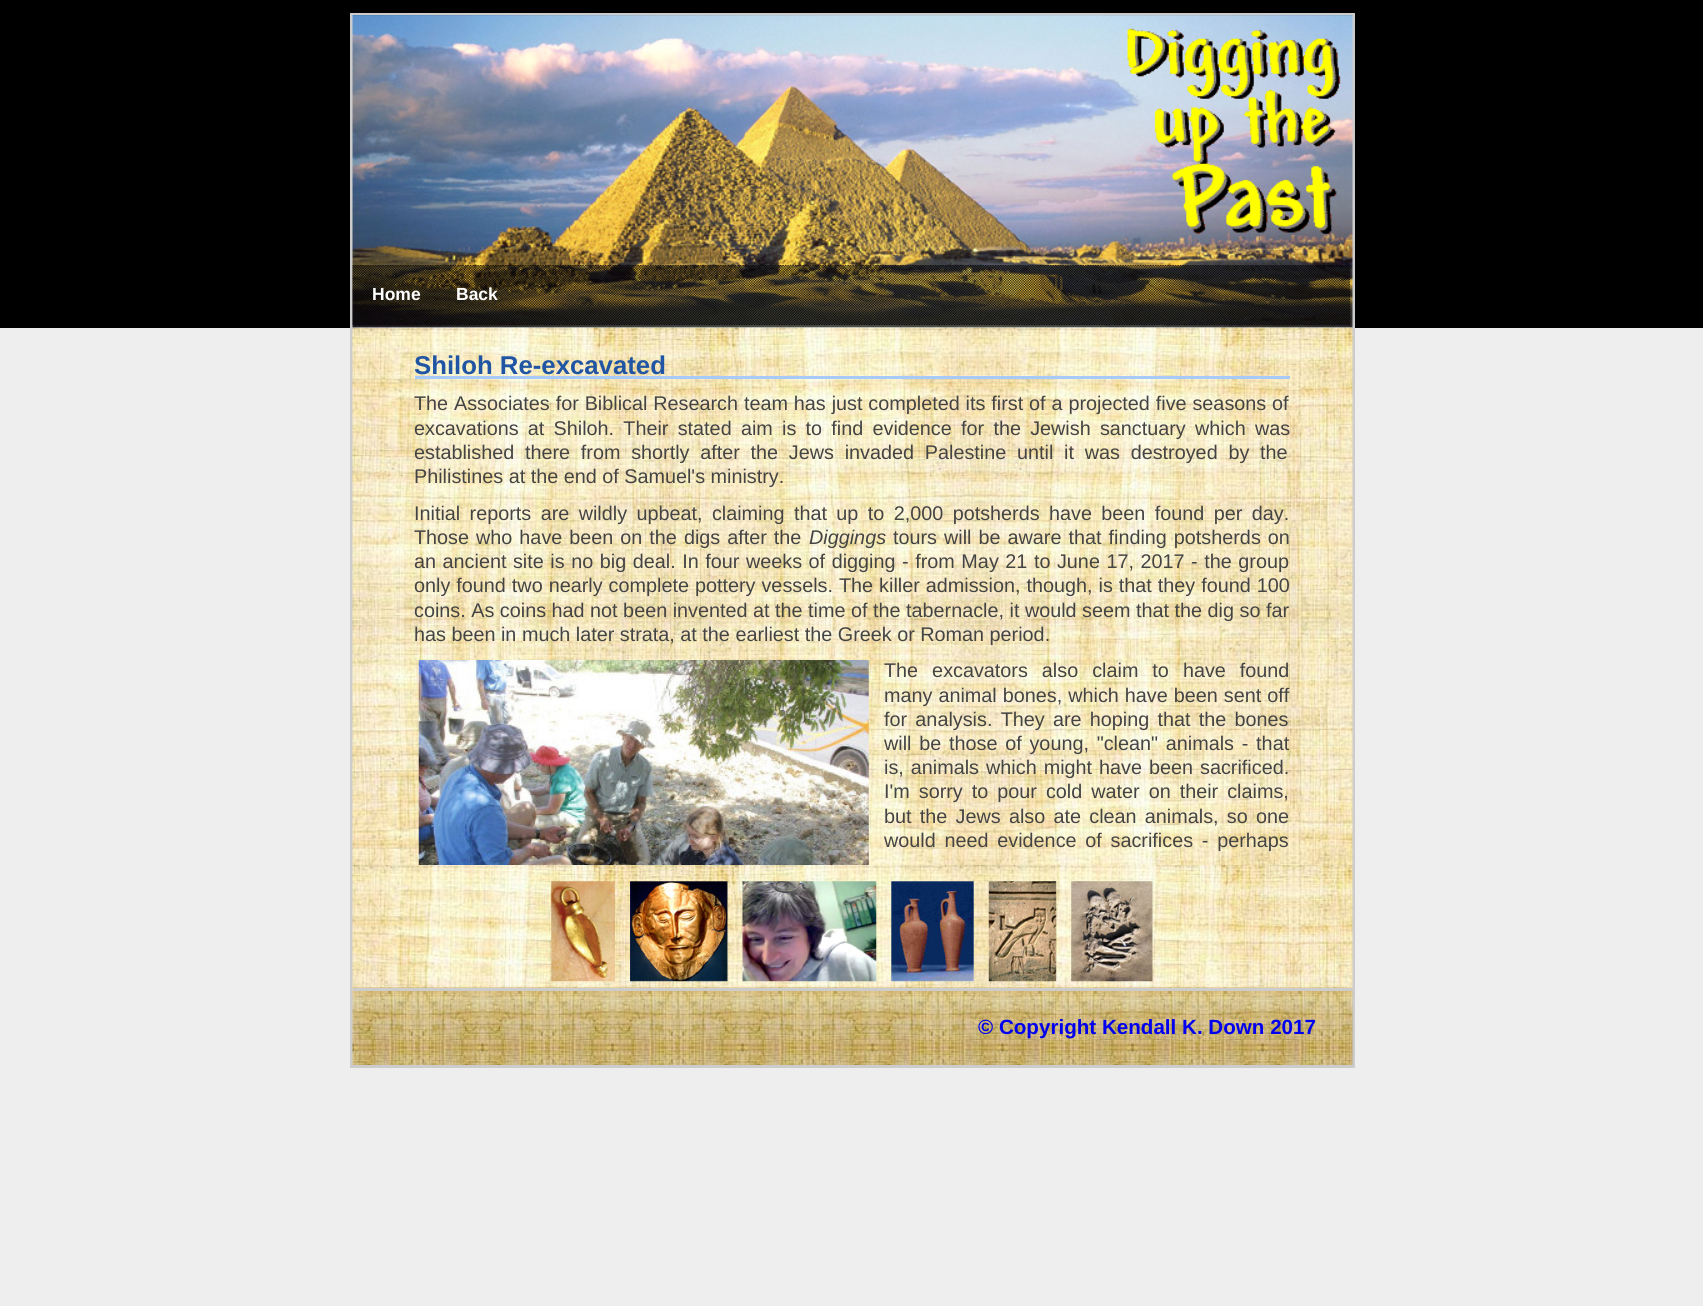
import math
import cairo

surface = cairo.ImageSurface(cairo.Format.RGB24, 1703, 1306)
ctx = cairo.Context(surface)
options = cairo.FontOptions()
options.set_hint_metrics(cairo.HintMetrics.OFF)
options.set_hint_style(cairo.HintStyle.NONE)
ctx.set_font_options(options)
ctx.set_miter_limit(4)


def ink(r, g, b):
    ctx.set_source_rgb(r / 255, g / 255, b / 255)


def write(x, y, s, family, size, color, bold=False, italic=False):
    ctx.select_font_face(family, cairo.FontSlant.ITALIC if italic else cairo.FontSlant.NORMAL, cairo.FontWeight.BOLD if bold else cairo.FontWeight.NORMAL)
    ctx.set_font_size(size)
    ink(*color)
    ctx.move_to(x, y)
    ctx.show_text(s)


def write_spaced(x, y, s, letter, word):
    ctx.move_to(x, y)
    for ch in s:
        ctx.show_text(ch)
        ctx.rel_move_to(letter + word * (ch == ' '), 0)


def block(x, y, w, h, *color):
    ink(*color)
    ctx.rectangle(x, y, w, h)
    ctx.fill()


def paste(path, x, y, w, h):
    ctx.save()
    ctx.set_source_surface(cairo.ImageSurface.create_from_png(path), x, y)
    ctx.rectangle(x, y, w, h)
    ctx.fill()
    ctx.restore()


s1 = dict(family="Liberation Sans", size=17.5, color=(255, 255, 255), bold=True)
s2 = dict(family="Liberation Sans", size=25.75, color=(31, 85, 163), bold=True)
s3 = dict(family="Liberation Sans", size=19.8, color=(68, 68, 68))
s4 = dict(family="Liberation Sans", size=19.8, color=(68, 68, 68), italic=True)
s5 = dict(family="Liberation Sans", size=20.6, color=(0, 0, 238), bold=True)

ink(238, 238, 238)
ctx.paint()
block(0, 0, 1703, 328, 0, 0, 0)
ctx.rectangle(351.5, 14.5, 1002, 1052)
ink(204, 204, 204)
ctx.set_line_width(3)
ctx.stroke()
paste("pic1.png", 352, 15, 1001, 315)
block(1352, 328, 1, 3, 204, 204, 204)
paste("pic2.png", 1127, 28, 214, 206)
paste("pic3.png", 352, 265, 998, 60)
write(372, 300, "Home", **s1)
write(456, 300, "Back", **s1)
paste("pic4.png", 352, 327, 1001, 538)
block(415, 376, 875, 3, 167, 202, 251)
write(414, 374, "Shiloh Re-excavated", **s2)
ctx.select_font_face("Liberation Sans")
ctx.set_font_size(19.8)
ink(68, 68, 68)
write_spaced(414, 410, "The Associates for Biblical Research team has just completed its first of a projected five seasons of", 0, 0.4)
write_spaced(414, 435, "excavations at Shiloh. Their stated aim is to find evidence for the Jewish sanctuary which was", 0, 3.75)
write_spaced(414, 459, "established there from shortly after the Jews invaded Palestine until it was destroyed by the", 0, 5.25)
write(414, 483, "Philistines at the end of Samuel's ministry.", **s3)
write_spaced(414, 520, "Initial reports are wildly upbeat, claiming that up to 2,000 potsherds have been found per day.", 0, 3.9)
write_spaced(414, 544, "Those who have been on the digs after the", 0, 1.5)
write(809, 544, "Diggings", **s4)
ctx.select_font_face("Liberation Sans")
write_spaced(893, 544, "tours will be aware that finding potsherds on", 0, 1.5)
write_spaced(414, 568, "an ancient site is no big deal. In four weeks of digging - from May 21 to June 17, 2017 - the group", 0, 1.05)
write_spaced(414, 592, "only found two nearly complete pottery vessels. The killer admission, though, is that they found 100", 0, 0.5)
write(414, 617, "coins. As coins had not been invented at the time of the tabernacle, it would seem that the dig so far", **s3)
write(414, 641, "has been in much later strata, at the earliest the Greek or Roman period.", **s3)
paste("pic5.png", 418, 660, 451, 205)
write_spaced(884, 677, "The excavators also claim to have found", 0, 8.5)
write_spaced(884, 702, "many animal bones, which have been sent off", 0, 0.5)
write_spaced(884, 726, "for analysis. They are hoping that the bones", 0, 2.75)
write_spaced(884, 750, "will be those of young, \"clean\" animals - that", 0, 2.25)
write_spaced(884, 774, "is, animals which might have been sacrificed.", 0, 1.5)
write_spaced(884, 798, "I'm sorry to pour cold water on their claims,", 0, 3.5)
write_spaced(884, 823, "but the Jews also ate clean animals, so one", 0, 2.75)
write_spaced(884, 847, "would need evidence of sacrifices - perhaps", 0, 3.25)
paste("pic6.png", 352, 865, 1001, 125)
paste("pic7.png", 551, 881, 64, 101)
paste("pic8.png", 630, 881, 98, 101)
paste("pic9.png", 742, 881, 135, 101)
paste("pic10.png", 891, 881, 83, 101)
paste("pic11.png", 988, 881, 69, 101)
paste("pic12.png", 1071, 881, 82, 101)
paste("pic13.png", 352, 987, 1001, 78)
block(353, 988, 1000, 3, 204, 204, 204)
write(978, 1034, "© Copyright Kendall K. Down 2017", **s5)
surface.write_to_png("screenshot.png")
